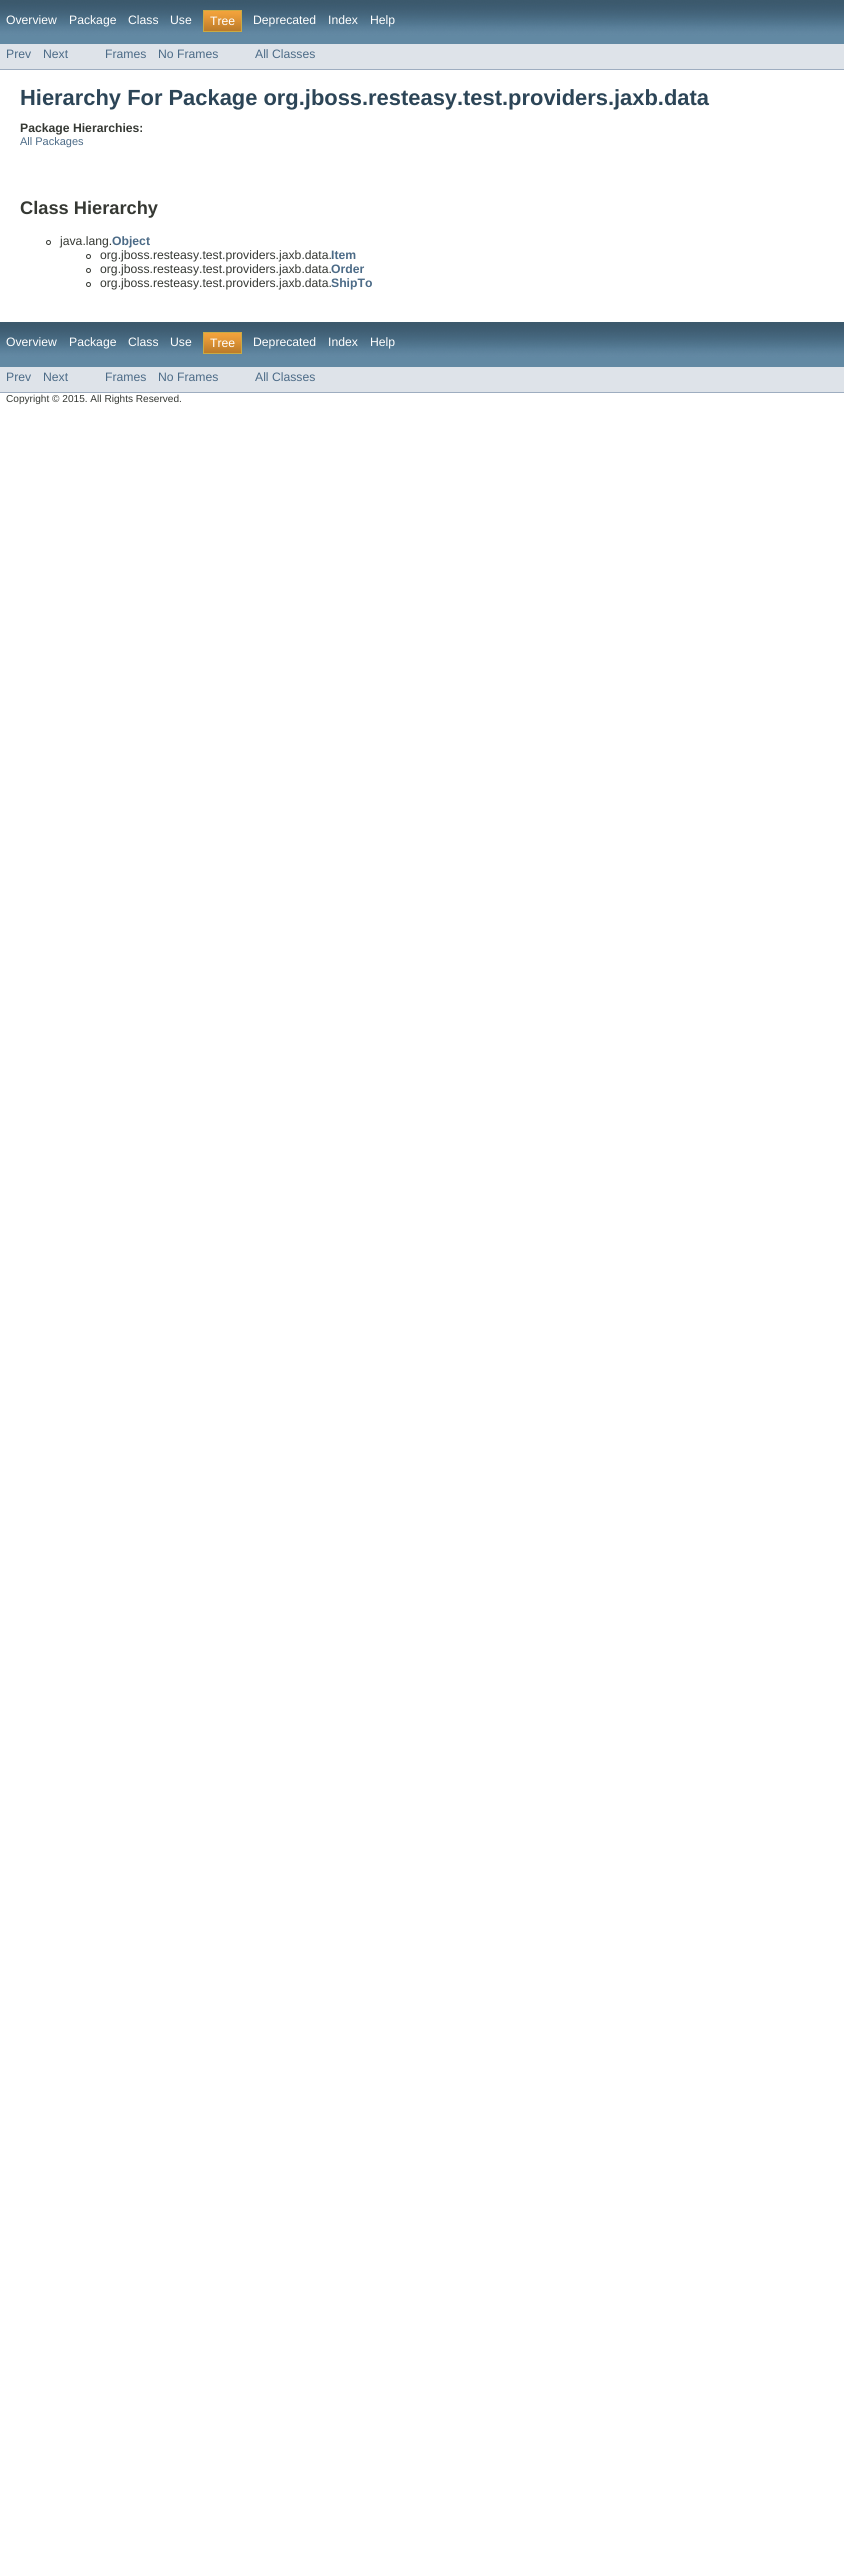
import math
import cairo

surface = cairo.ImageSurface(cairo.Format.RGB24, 844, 2567)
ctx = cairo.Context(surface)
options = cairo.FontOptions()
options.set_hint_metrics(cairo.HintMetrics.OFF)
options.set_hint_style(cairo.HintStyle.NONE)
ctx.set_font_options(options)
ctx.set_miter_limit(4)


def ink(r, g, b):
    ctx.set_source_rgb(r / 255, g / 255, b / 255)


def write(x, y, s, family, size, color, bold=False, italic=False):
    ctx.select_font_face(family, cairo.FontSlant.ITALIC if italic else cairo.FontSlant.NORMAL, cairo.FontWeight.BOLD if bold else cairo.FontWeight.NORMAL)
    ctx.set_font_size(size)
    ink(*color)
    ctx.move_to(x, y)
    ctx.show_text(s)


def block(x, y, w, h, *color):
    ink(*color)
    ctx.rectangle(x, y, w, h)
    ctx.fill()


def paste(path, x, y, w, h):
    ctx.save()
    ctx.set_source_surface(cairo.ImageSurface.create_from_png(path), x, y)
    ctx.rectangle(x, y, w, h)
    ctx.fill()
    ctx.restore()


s1 = dict(family="Liberation Sans", size=12.2, color=(255, 255, 255))
s2 = dict(family="Liberation Sans", size=12.2, color=(76, 107, 135))
s3 = dict(family="Liberation Sans", size=21.9, color=(44, 69, 87), bold=True)
s4 = dict(family="Liberation Sans", size=12.2, color=(53, 56, 51), bold=True)
s5 = dict(family="Liberation Sans", size=11, color=(76, 107, 135))
s6 = dict(family="Liberation Sans", size=18.25, color=(53, 56, 51), bold=True)
s7 = dict(family="Liberation Sans", size=12.2, color=(53, 56, 51))
s8 = dict(family="Liberation Sans", size=12.2, color=(76, 107, 135), bold=True)
s9 = dict(family="Liberation Sans", size=10.1, color=(53, 56, 51))

ink(255, 255, 255)
ctx.paint()
paste("pic1.png", 0, 0, 844, 44)
write(6, 24, "Overview", **s1)
write(69, 24, "Package", **s1)
write(128, 24, "Class", **s1)
write(170, 24, "Use", **s1)
paste("pic2.png", 204, 11, 37, 20)
ctx.rectangle(203.5, 10.5, 38, 21)
ink(201, 170, 68)
ctx.set_line_width(1)
ctx.stroke()
write(210, 25, "Tree", **s1)
write(253, 24, "Deprecated", **s1)
write(328, 24, "Index", **s1)
write(370, 24, "Help", **s1)
block(0, 44, 844, 25, 222, 227, 233)
block(0, 69, 844, 1, 158, 173, 192)
write(6, 58, "Prev", **s2)
write(43, 58, "Next", **s2)
write(105, 58, "Frames", **s2)
write(158, 58, "No Frames", **s2)
write(255, 58, "All Classes", **s2)
write(20, 105, "Hierarchy For Package org.jboss.resteasy.test.providers.jaxb.data", **s3)
write(20, 132, "Package Hierarchies:", **s4)
write(20, 145, "All Packages", **s5)
write(20, 214, "Class Hierarchy", **s6)
ctx.new_path()
ctx.arc(48.5, 242.5, 2, 0, 2 * math.pi)
ctx.stroke()
write(60, 245, "java.lang.", **s7)
write(112, 245, "Object", **s8)
ctx.new_path()
ctx.arc(88.5, 256.5, 2, 0, 2 * math.pi)
ink(53, 56, 51)
ctx.stroke()
write(100, 259, "org.jboss.resteasy.test.providers.jaxb.data.", **s7)
write(331, 259, "Item", **s8)
ctx.new_path()
ctx.arc(88.5, 270.5, 2, 0, 2 * math.pi)
ink(53, 56, 51)
ctx.stroke()
write(100, 273, "org.jboss.resteasy.test.providers.jaxb.data.", **s7)
write(331, 273, "Order", **s8)
ctx.new_path()
ctx.arc(88.5, 284.5, 2, 0, 2 * math.pi)
ink(53, 56, 51)
ctx.stroke()
write(100, 287, "org.jboss.resteasy.test.providers.jaxb.data.", **s7)
write(331, 287, "ShipTo", **s8)
paste("pic3.png", 0, 322, 844, 45)
write(6, 346, "Overview", **s1)
write(69, 346, "Package", **s1)
write(128, 346, "Class", **s1)
write(170, 346, "Use", **s1)
paste("pic2.png", 204, 333, 37, 20)
ctx.rectangle(203.5, 332.5, 38, 21)
ink(201, 170, 68)
ctx.stroke()
write(210, 347, "Tree", **s1)
write(253, 346, "Deprecated", **s1)
write(328, 346, "Index", **s1)
write(370, 346, "Help", **s1)
block(0, 367, 844, 25, 222, 227, 233)
block(0, 392, 844, 1, 158, 173, 192)
write(6, 381, "Prev", **s2)
write(43, 381, "Next", **s2)
write(105, 381, "Frames", **s2)
write(158, 381, "No Frames", **s2)
write(255, 381, "All Classes", **s2)
write(6, 402, "Copyright © 2015. All Rights Reserved.", **s9)
surface.write_to_png("screenshot.png")
